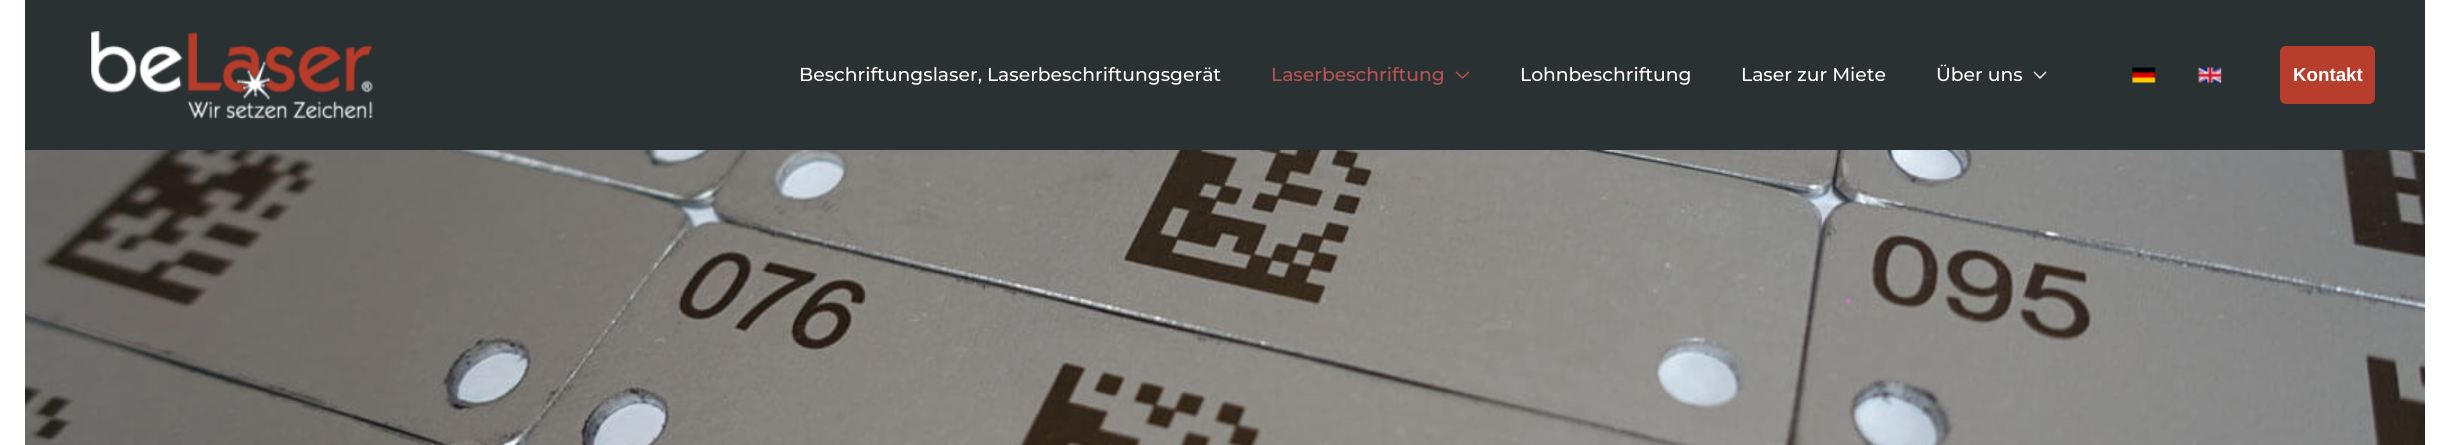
import math
import cairo

surface = cairo.ImageSurface(cairo.Format.RGB24, 2450, 445)
ctx = cairo.Context(surface)
options = cairo.FontOptions()
options.set_hint_metrics(cairo.HintMetrics.OFF)
options.set_hint_style(cairo.HintStyle.NONE)
ctx.set_font_options(options)
ctx.set_miter_limit(4)


def ink(r, g, b):
    ctx.set_source_rgb(r / 255, g / 255, b / 255)


def write(x, y, s, family, size, color, bold=False, italic=False):
    ctx.select_font_face(family, cairo.FontSlant.ITALIC if italic else cairo.FontSlant.NORMAL, cairo.FontWeight.BOLD if bold else cairo.FontWeight.NORMAL)
    ctx.set_font_size(size)
    ink(*color)
    ctx.move_to(x, y)
    ctx.show_text(s)


def block(x, y, w, h, *color):
    ink(*color)
    ctx.rectangle(x, y, w, h)
    ctx.fill()


def round_path(x, y, w, h, r):
    ctx.new_sub_path()
    for i, (u, v) in enumerate([(x + w - r, y + h - r), (x + r, y + h - r), (x + r, y + r), (x + w - r, y + r)]):
        ctx.arc(u, v, r, i * math.pi / 2, (i + 1) * math.pi / 2)
    ctx.close_path()


def paste(path, x, y, w, h):
    ctx.save()
    ctx.set_source_surface(cairo.ImageSurface.create_from_png(path), x, y)
    ctx.rectangle(x, y, w, h)
    ctx.fill()
    ctx.restore()


s1 = dict(family="Montserrat Thin", size=18.75, color=(255, 248, 248))
s2 = dict(family="Montserrat Thin", size=18.75, color=(183, 83, 83))
s3 = dict(family="Liberation Sans", size=18.75, color=(255, 255, 255), bold=True)

ink(255, 255, 255)
ctx.paint()
block(25, 0, 2400, 150, 41, 49, 51)
paste("pic1.png", 91, 31, 282, 88)
write(799, 81, "Beschriftungslaser, Laserbeschriftungsgerät", **s1)
write(1271, 81, "Laserbeschriftung", **s2)
ctx.new_path()
ctx.move_to(1456, 72)
ctx.line_to(1462.5, 78)
ctx.line_to(1469, 72)
ctx.set_line_width(1.4)
ctx.stroke()
write(1520, 81, "Lohnbeschriftung", **s1)
write(1741, 81, "Laser zur Miete", **s1)
write(1936, 81, "Über uns", **s1)
ctx.new_path()
ctx.move_to(2034, 72)
ctx.line_to(2040, 78)
ctx.line_to(2046, 72)
ctx.stroke()
paste("pic2.png", 2132, 67, 24, 16)
paste("pic3.png", 2198, 67, 24, 16)
ink(183, 62, 44)
round_path(2280, 46, 95, 58, 6)
ctx.fill()
write(2293, 81, "Kontakt", **s3)
paste("pic4.png", 25, 150, 2400, 295)
surface.write_to_png("screenshot.png")
